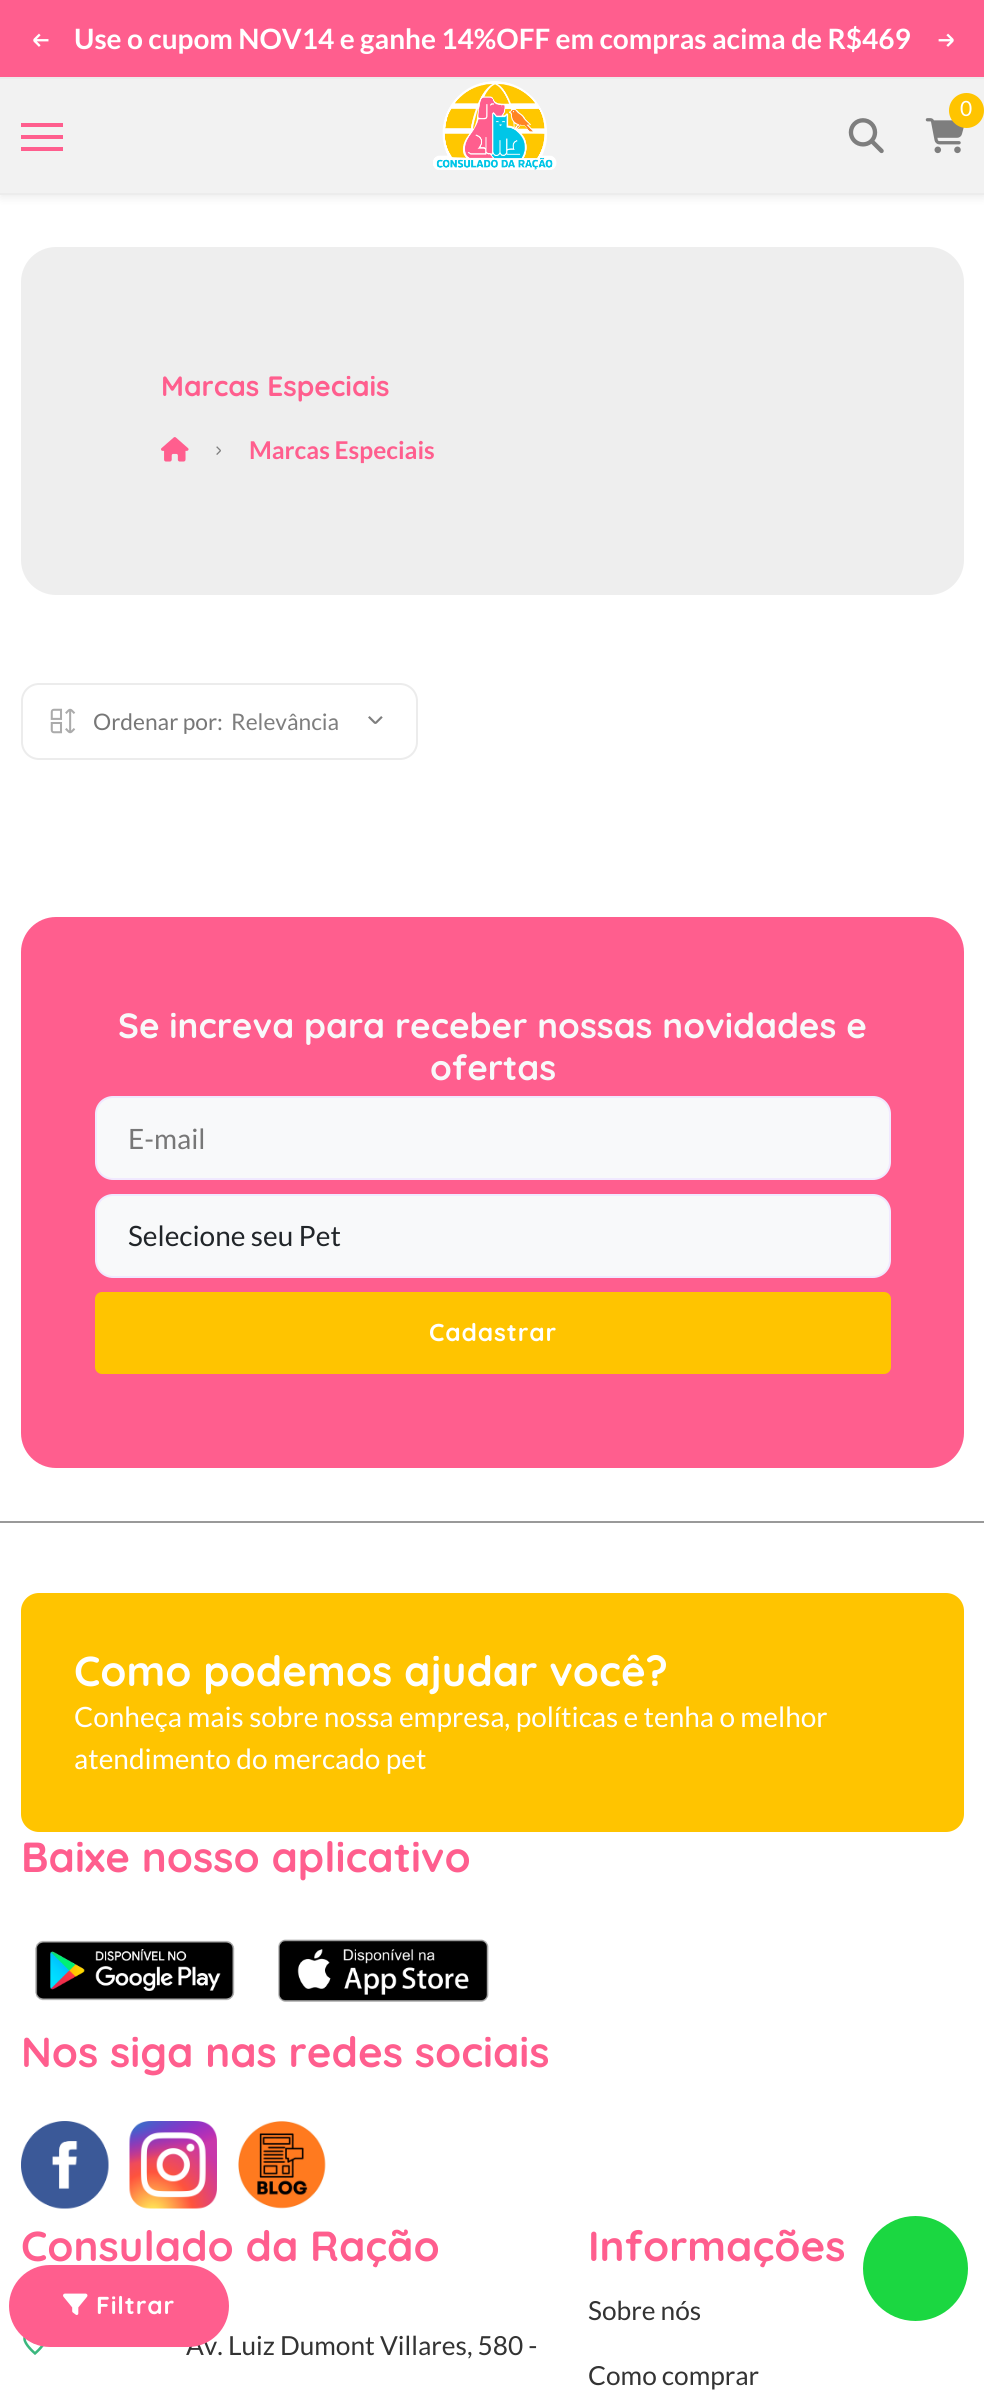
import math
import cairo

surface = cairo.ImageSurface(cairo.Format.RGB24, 984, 2390)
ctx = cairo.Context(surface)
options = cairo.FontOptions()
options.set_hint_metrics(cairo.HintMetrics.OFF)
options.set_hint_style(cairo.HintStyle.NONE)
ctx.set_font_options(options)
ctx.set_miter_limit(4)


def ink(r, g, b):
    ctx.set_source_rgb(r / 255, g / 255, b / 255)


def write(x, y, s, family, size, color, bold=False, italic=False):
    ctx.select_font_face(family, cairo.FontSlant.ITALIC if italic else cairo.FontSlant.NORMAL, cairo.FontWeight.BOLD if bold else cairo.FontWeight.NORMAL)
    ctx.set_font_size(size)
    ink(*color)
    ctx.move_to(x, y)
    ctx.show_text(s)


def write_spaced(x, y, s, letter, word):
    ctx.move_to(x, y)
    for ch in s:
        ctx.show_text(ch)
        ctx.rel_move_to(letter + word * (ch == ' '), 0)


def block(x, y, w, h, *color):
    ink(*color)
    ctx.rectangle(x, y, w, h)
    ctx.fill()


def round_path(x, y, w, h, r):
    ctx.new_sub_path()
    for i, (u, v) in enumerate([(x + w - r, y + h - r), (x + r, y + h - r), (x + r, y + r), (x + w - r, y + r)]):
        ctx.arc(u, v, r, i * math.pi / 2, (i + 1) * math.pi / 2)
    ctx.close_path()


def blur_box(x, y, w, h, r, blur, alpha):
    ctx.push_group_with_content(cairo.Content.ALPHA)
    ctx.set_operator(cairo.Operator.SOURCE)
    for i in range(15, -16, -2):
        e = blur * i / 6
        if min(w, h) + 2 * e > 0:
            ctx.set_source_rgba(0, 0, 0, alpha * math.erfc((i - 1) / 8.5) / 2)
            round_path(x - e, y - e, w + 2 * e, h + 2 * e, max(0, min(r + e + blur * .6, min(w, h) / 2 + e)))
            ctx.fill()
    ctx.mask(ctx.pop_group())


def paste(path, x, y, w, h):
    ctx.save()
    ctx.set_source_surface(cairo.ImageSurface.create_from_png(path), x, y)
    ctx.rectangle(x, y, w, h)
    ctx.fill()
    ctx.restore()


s1 = dict(family="Lato", size=28, color=(255, 255, 255), bold=True)
s2 = dict(family="Lato", size=21, color=(255, 255, 255))
s3 = dict(family="Quicksand Light", size=28, color=(255, 94, 142))
s4 = dict(family="Lato", size=24.5, color=(255, 94, 142), bold=True)
s5 = dict(family="Lato", size=22.75, color=(119, 119, 119))
s6 = dict(family="Lato", size=22.75, color=(126, 126, 126))
s7 = dict(family="Quicksand Light", size=35, color=(248, 249, 250))
s8 = dict(family="Lato", size=28, color=(119, 119, 119))
s9 = dict(family="Lato", size=28, color=(33, 37, 41))
s10 = dict(family="Quicksand Light", size=42, color=(255, 255, 255))
s11 = dict(family="Lato", size=28, color=(255, 255, 255))
s12 = dict(family="Quicksand Light", size=42, color=(255, 94, 142))
s13 = dict(family="Lato", size=26.25, color=(51, 51, 51))

ink(255, 255, 255)
ctx.paint()
ink(0, 0, 0)
blur_box(0, 4, 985, 194, 0, 4.5, 0.07)
block(0, 79, 984, 114, 242, 242, 242)
block(0, 193, 984, 2, 236, 236, 236)
block(0, 0, 984, 77, 255, 94, 142)
block(0, 77, 984, 2, 236, 236, 236)
write(74, 49, "Use o cupom NOV14 e ganhe 14%OFF em compras acima de R$469", **s1)
paste("pic1.png", 33, 33, 16, 14)
paste("pic2.png", 938, 33, 16, 14)
paste("pic3.png", 433, 81, 124, 89)
paste("pic4.png", 925, 118, 39, 36)
ink(255, 196, 0)
ctx.arc(966.5, 110.5, 17.5, 0, 2 * math.pi)
ctx.fill()
write(960, 116, "0", **s2)
paste("pic5.png", 848, 118, 36, 36)
block(21, 123, 42, 4, 255, 94, 142)
block(21, 135, 42, 4, 255, 94, 142)
block(21, 147, 42, 4, 255, 94, 142)
ink(238, 238, 238)
round_path(21, 247, 943, 348, 35)
ctx.fill()
write(161, 396, "Marcas Especiais", **s3)
paste("pic6.png", 161, 437, 28, 25)
paste("pic7.png", 216, 446, 5, 9)
write(249, 459, "Marcas Especiais", **s4)
round_path(22, 684, 395, 75, 17)
ink(236, 236, 236)
ctx.stroke()
paste("pic8.png", 50, 708, 26, 26)
write(93, 730, "Ordenar por:", **s5)
write(231, 730, "Relevância", **s6)
paste("pic9.png", 368, 716, 15, 8)
ink(255, 94, 142)
round_path(21, 917, 943, 551, 35)
ctx.fill()
write(118, 1038, "Se increva para receber nossas novidades e", **s7)
write(430, 1080, "ofertas", **s7)
round_path(96, 1097, 794, 82, 17)
ctx.fill_preserve()
ink(240, 233, 255)
ctx.stroke()
write(128, 1149, "E-mail", **s8)
ink(248, 249, 250)
round_path(96, 1195, 794, 82, 17)
ctx.fill_preserve()
ink(240, 233, 255)
ctx.stroke()
write(128, 1246, "Selecione seu Pet", **s9)
ink(255, 196, 0)
round_path(95, 1292, 796, 82, 7)
ctx.fill()
ctx.select_font_face("Quicksand Light")
ctx.set_font_size(24.5)
ink(255, 255, 255)
write_spaced(429, 1341, "Cadastrar", 0.9, 0)
block(0, 1521, 984, 2, 153, 153, 153)
ink(255, 196, 0)
round_path(21, 1593, 943, 239, 18)
ctx.fill()
write(74, 1686, "Como podemos ajudar você?", **s10)
write(74, 1727, "Conheça mais sobre nossa empresa, políticas e tenha o melhor", **s11)
write(74, 1769, "atendimento do mercado pet", **s11)
write(21, 1872, "Baixe nosso aplicativo", **s12)
paste("pic10.png", 35, 1940, 200, 61)
paste("pic11.png", 278, 1939, 211, 63)
write(21, 2067, "Nos siga nas redes sociais", **s12)
paste("pic12.png", 21, 2121, 88, 88)
paste("pic13.png", 129, 2121, 88, 88)
paste("pic14.png", 238, 2121, 88, 88)
write(21, 2261, "Consulado da Ração", **s12)
paste("pic15.png", 23, 2336, 21, 19)
write(186, 2355, "Av. Luiz Dumont Villares, 580 -", **s13)
write(588, 2261, "Informações", **s12)
write(588, 2320, "Sobre nós", **s13)
write(588, 2385, "Como comprar", **s13)
ink(27, 215, 65)
ctx.new_path()
ctx.arc(915.5, 2268.5, 52.5, 0, 2 * math.pi)
ctx.fill()
ink(255, 94, 142)
round_path(9, 2265, 220, 82, 41)
ctx.fill()
paste("pic16.png", 63, 2293, 25, 22)
ctx.select_font_face("Quicksand Light")
ctx.set_font_size(24.5)
ink(255, 255, 255)
write_spaced(96, 2314, "Filtrar", 0.9, 0)
surface.write_to_png("screenshot.png")
